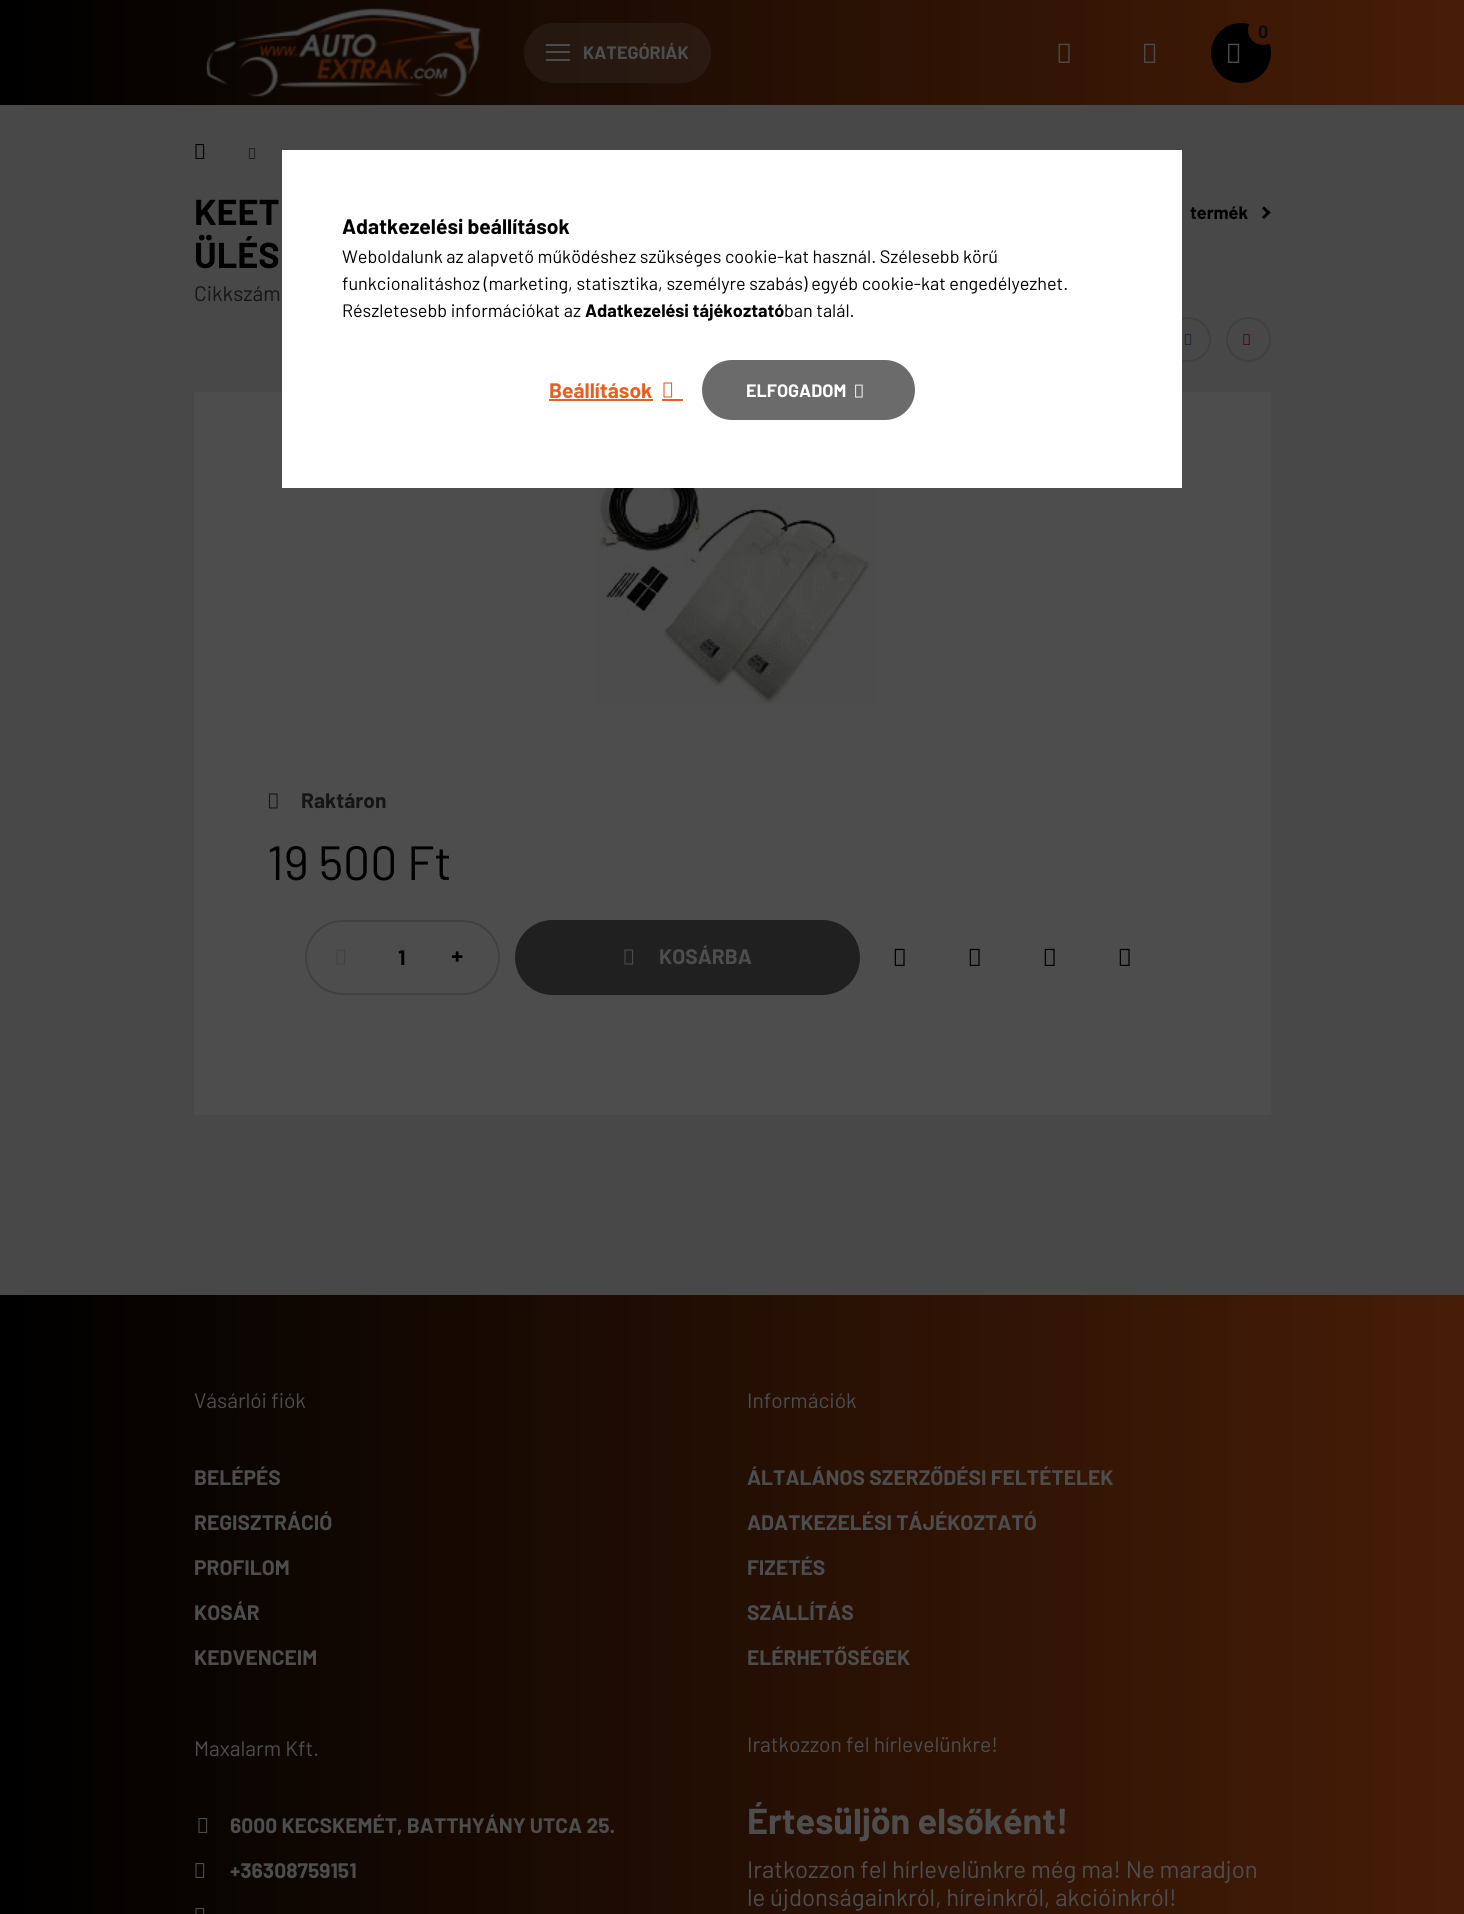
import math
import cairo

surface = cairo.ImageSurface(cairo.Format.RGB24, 1464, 1914)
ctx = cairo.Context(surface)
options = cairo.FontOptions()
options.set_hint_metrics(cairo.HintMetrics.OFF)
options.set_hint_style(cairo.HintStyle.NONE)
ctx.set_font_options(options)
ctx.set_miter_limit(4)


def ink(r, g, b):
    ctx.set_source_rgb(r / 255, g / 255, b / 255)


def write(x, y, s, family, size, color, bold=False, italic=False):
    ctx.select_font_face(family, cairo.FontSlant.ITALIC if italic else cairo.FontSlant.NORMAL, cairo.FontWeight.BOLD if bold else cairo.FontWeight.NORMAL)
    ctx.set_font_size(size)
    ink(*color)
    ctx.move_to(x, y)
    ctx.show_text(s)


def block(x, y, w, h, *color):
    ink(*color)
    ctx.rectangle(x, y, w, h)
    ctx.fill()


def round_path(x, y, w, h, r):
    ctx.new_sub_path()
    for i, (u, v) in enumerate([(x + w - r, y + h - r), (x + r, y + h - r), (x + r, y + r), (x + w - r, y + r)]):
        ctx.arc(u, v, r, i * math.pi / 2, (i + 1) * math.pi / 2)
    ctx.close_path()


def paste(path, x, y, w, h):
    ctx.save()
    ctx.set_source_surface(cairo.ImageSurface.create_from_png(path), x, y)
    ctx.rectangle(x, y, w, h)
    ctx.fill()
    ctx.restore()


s1 = dict(family="Barlow", size=18, color=(14, 12, 11), bold=True)
s2 = dict(family="Barlow", size=18, color=(77, 77, 77), bold=True)
s3 = dict(family="Barlow", size=36, color=(0, 0, 0), bold=True)
s4 = dict(family="Barlow", size=18, color=(0, 0, 0), bold=True)
s5 = dict(family="Barlow", size=21, color=(21, 21, 21))
s6 = dict(family="Barlow", size=21, color=(21, 21, 21), bold=True)
s7 = dict(family="Barlow", size=48, color=(0, 0, 0))
s8 = dict(family="Barlow", size=21, color=(0, 0, 0), bold=True)
s9 = dict(family="Noto Sans Black", size=21, color=(0, 0, 0))
s10 = dict(family="Barlow", size=21, color=(77, 77, 77), bold=True)
s11 = dict(family="Barlow", size=21, color=(77, 77, 77))
s12 = dict(family="Barlow", size=36, color=(77, 77, 77), bold=True)
s13 = dict(family="Barlow", size=24, color=(77, 77, 77))
s14 = dict(family="Barlow", size=18, color=(0, 0, 0))
s15 = dict(family="Barlow", size=21, color=(230, 95, 37), bold=True)
s16 = dict(family="Barlow", size=18, color=(255, 255, 255), bold=True)

ink(72, 72, 72)
ctx.paint()
gradient = cairo.LinearGradient(0, 957, 1464, 957)
gradient.add_color_stop_rgba(0, 0, 0, 0, 1)
gradient.add_color_stop_rgba(1, 0.278, 0.114, 0.027, 1)
ctx.set_source(gradient)
ctx.rectangle(0, 0, 1464, 105)
ctx.fill()
ink(0, 0, 0)
ctx.arc(1241, 53, 30, 0, 2 * math.pi)
ctx.fill()
gradient = cairo.LinearGradient(0, 957, 1464, 957)
gradient.add_color_stop_rgba(0, 0, 0, 0, 1)
gradient.add_color_stop_rgba(1, 0.278, 0.114, 0.027, 1)
ctx.set_source(gradient)
ctx.arc(1263, 30, 15, 0, 2 * math.pi)
ctx.fill()
write(1258, 38, "0", **s1)
paste("pic1.png", 1228, 43, 12, 20)
paste("pic2.png", 1058, 43, 12, 20)
paste("pic3.png", 1144, 43, 12, 20)
paste("pic4.png", 206, 7, 275, 90)
ctx.set_source_rgba(0.302, 0.302, 0.302, 0.2)
round_path(524, 23, 187, 60, 30)
ctx.fill()
block(546, 44, 24, 2, 77, 77, 77)
block(546, 51, 24, 2, 77, 77, 77)
block(546, 59, 24, 2, 77, 77, 77)
write(583, 59, "KATEGÓRIÁK", **s2)
paste("pic5.png", 195, 144, 10, 15)
paste("pic6.png", 248, 148, 8, 11)
write(194, 225, "KEET", **s3)
write(194, 268, "ÜLÉS", **s3)
write(1190, 219, "termék", **s4)
ctx.new_path()
ctx.move_to(1262, 217)
ctx.line_to(1268.5, 210.5)
ctx.line_to(1270.5, 212.5)
ctx.line_to(1264, 219)
ctx.close_path()
ctx.fill()
ctx.new_path()
ctx.move_to(1264, 206.5)
ctx.line_to(1270.5, 212.5)
ctx.line_to(1268.5, 214.5)
ctx.line_to(1262, 208.5)
ctx.close_path()
ctx.fill()
write(194, 301, "Cikkszám", **s5)
ctx.new_path()
ctx.arc(1188.5, 339.5, 21.5, 0, 2 * math.pi)
ink(64, 64, 64)
ctx.stroke()
paste("pic7.png", 1184, 334, 8, 11)
ctx.arc(1248.5, 339.5, 21.5, 0, 2 * math.pi)
ctx.stroke()
paste("pic8.png", 1243, 334, 7, 11)
block(194, 392, 1077, 723, 77, 77, 77)
paste("pic9.png", 595, 488, 279, 216)
paste("pic10.png", 268, 793, 10, 16)
write(301, 808, "Raktáron", **s6)
write(267, 880, "19 500 Ft", **s7)
round_path(306, 921, 193, 73, 36.5)
ink(64, 64, 64)
ctx.stroke()
paste("pic11.png", 336, 949, 9, 16)
write(398, 965, "1", **s8)
write(451, 964, "+", **s9)
gradient = cairo.LinearGradient(515, 957, 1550, 957)
gradient.add_color_stop_rgba(0.33, 0.125, 0.125, 0.125, 1)
gradient.add_color_stop_rgba(0.67, 0.271, 0.114, 0.043, 1)
ctx.set_source(gradient)
round_path(515, 920, 345, 75, 37.5)
ctx.fill()
paste("pic12.png", 624, 949, 10, 16)
write(659, 964, "KOSÁRBA", **s10)
paste("pic13.png", 894, 948, 11, 18)
paste("pic13.png", 969, 948, 11, 18)
paste("pic13.png", 1044, 948, 11, 18)
paste("pic13.png", 1119, 948, 11, 18)
gradient = cairo.LinearGradient(0, 957, 1464, 957)
gradient.add_color_stop_rgba(0, 0, 0, 0, 1)
gradient.add_color_stop_rgba(1, 0.278, 0.114, 0.027, 1)
ctx.set_source(gradient)
ctx.rectangle(0, 1295, 1464, 619)
ctx.fill()
write(194, 1408, "Vásárlói fiók", **s11)
write(194, 1485, "BELÉPÉS", **s10)
write(194, 1530, "REGISZTRÁCIÓ", **s10)
write(194, 1575, "PROFILOM", **s10)
write(194, 1620, "KOSÁR", **s10)
write(194, 1665, "KEDVENCEIM", **s10)
write(747, 1408, "Információk", **s11)
write(747, 1485, "ÁLTALÁNOS SZERZŐDÉSI FELTÉTELEK", **s10)
write(747, 1530, "ADATKEZELÉSI TÁJÉKOZTATÓ", **s10)
write(747, 1575, "FIZETÉS", **s10)
write(747, 1620, "SZÁLLÍTÁS", **s10)
write(747, 1665, "ELÉRHETŐSÉGEK", **s10)
write(194, 1756, "Maxalarm Kft.", **s11)
paste("pic14.png", 198, 1818, 10, 15)
write(230, 1833, "6000 KECSKEMÉT, BATTHYÁNY UTCA 25.", **s10)
paste("pic15.png", 195, 1863, 10, 15)
write(230, 1878, "+36308759151", **s10)
paste("pic16.png", 195, 1908, 10, 6)
write(747, 1752, "Iratkozzon fel hírlevelünkre!", **s11)
write(747, 1834, "Értesüljön elsőként!", **s12)
write(747, 1878, "Iratkozzon fel hírlevelünkre még ma! Ne maradjon", **s13)
write(747, 1906, "le újdonságainkról, híreinkről, akcióinkról!", **s13)
block(282, 150, 900, 338, 255, 255, 255)
write(342, 234, "Adatkezelési beállítások", **s8)
write(342, 263, "Weboldalunk az alapvető működéshez szükséges cookie-kat használ. Szélesebb körű", **s14)
write(342, 290, "funkcionalitáshoz (marketing, statisztika, személyre szabás) egyéb cookie-kat engedélyezhet.", **s14)
write(342, 317, "Részletesebb információkat az", **s14)
write(585, 317, "Adatkezelési tájékoztató", **s4)
write(784, 317, "ban talál.", **s14)
write(549, 398, "Beállítások", **s15)
block(549, 399, 104, 2, 230, 95, 37)
paste("pic17.png", 663, 382, 10, 16)
block(662, 399, 21, 2, 230, 95, 37)
gradient = cairo.LinearGradient(702, 390, 1341, 390)
gradient.add_color_stop_rgba(0.33, 0.42, 0.42, 0.42, 1)
gradient.add_color_stop_rgba(0.67, 0.902, 0.373, 0.145, 1)
ctx.set_source(gradient)
round_path(702, 360, 213, 60, 30)
ctx.fill()
write(746, 397, "ELFOGADOM", **s16)
paste("pic18.png", 855, 384, 8, 14)
surface.write_to_png("screenshot.png")
